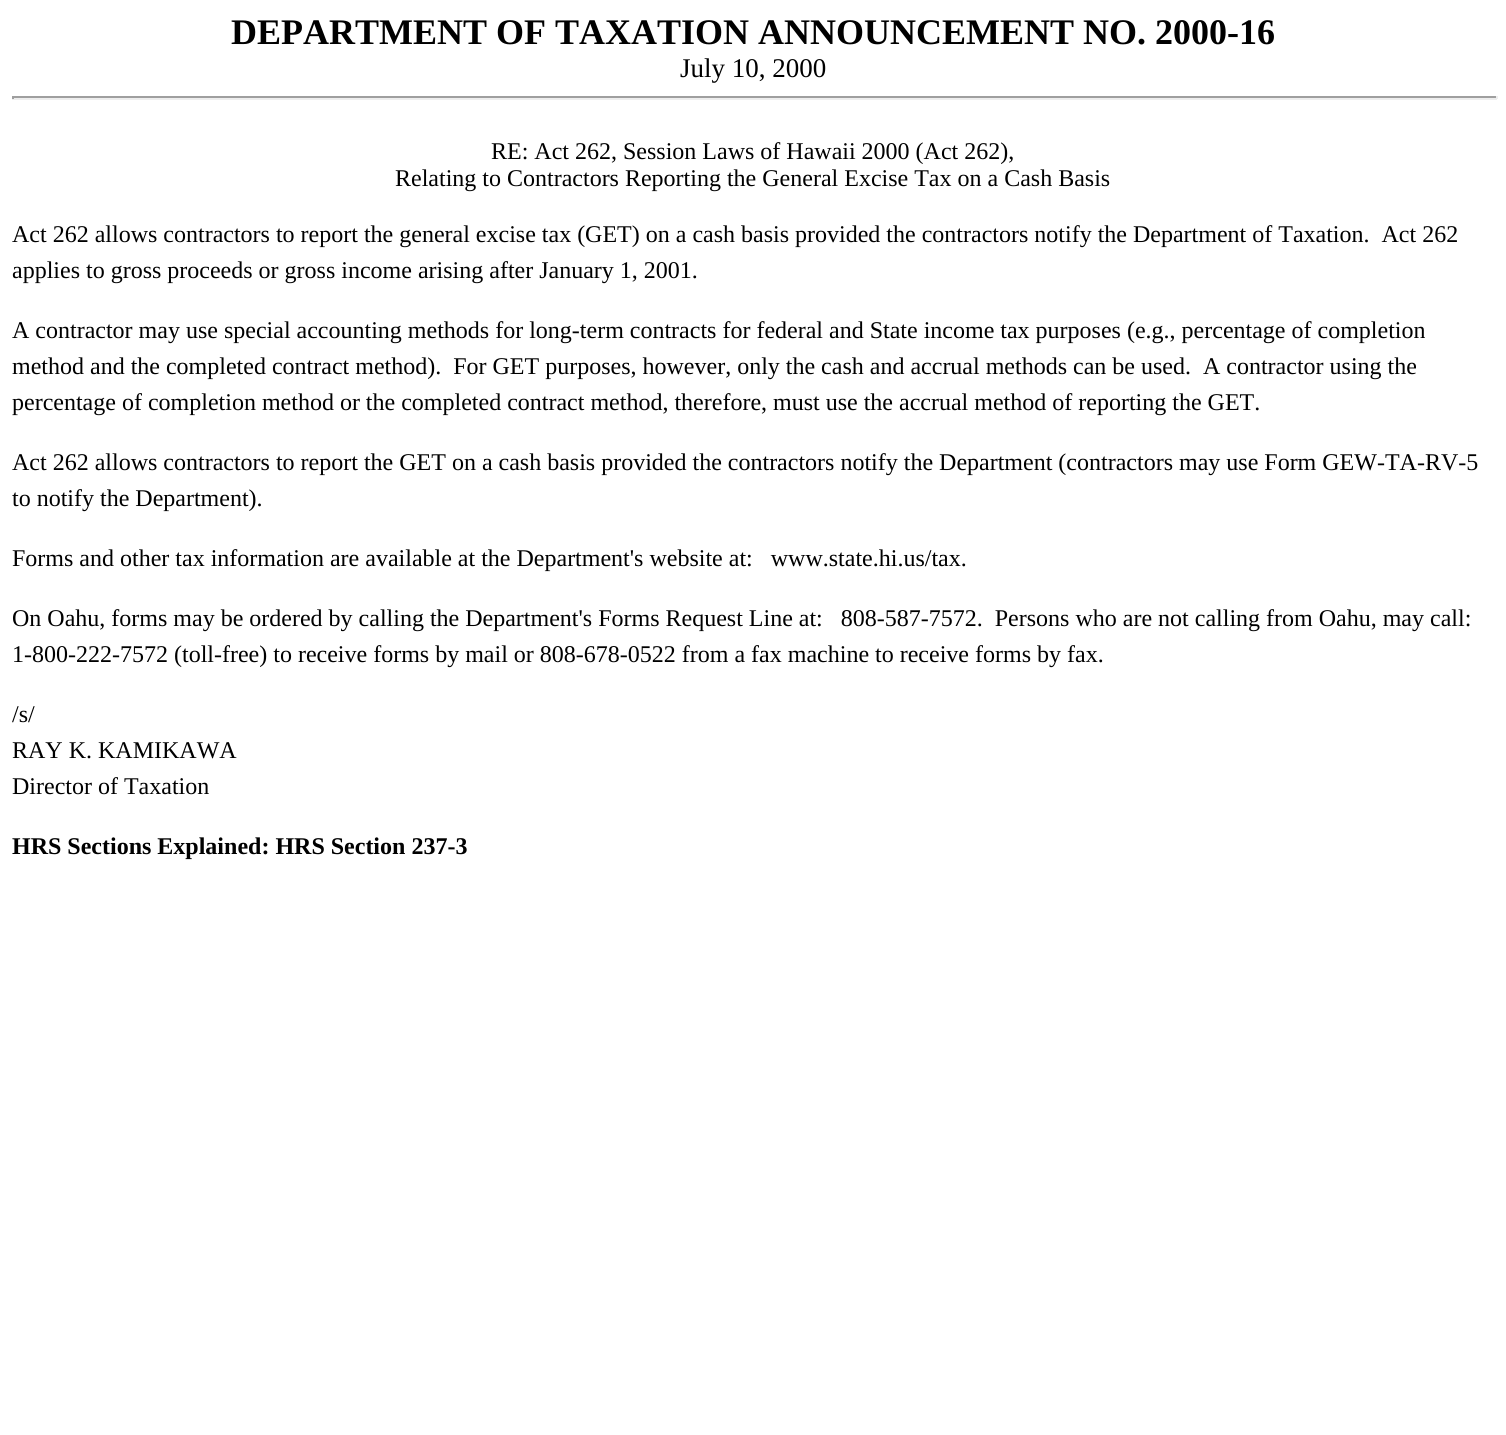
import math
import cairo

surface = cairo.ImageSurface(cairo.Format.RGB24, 1506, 1435)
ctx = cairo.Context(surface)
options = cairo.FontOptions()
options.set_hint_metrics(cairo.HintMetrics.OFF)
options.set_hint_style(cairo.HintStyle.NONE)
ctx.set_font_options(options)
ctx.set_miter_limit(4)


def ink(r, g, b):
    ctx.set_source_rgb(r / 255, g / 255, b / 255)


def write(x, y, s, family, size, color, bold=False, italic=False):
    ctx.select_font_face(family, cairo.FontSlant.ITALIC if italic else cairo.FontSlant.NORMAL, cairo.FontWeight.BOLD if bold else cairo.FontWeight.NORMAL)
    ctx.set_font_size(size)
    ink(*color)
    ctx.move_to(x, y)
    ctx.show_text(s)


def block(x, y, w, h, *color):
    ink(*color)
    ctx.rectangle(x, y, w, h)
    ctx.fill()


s1 = dict(family="Liberation Serif", size=36, color=(0, 0, 0), bold=True)
s2 = dict(family="Liberation Serif", size=27, color=(0, 0, 0))
s3 = dict(family="Liberation Serif", size=24, color=(0, 0, 0))
s4 = dict(family="Liberation Serif", size=24, color=(0, 0, 0), bold=True)

ink(255, 255, 255)
ctx.paint()
write(231, 44, "DEPARTMENT OF TAXATION ANNOUNCEMENT NO. 2000-16", **s1)
write(680, 77, "July 10, 2000", **s2)
block(12, 96, 1485, 2, 159, 159, 159)
block(1496, 96, 2, 3, 238, 238, 238)
block(12, 98, 1485, 2, 238, 238, 238)
block(12, 96, 2, 3, 159, 159, 159)
write(491, 159, "RE: Act 262, Session Laws of Hawaii 2000 (Act 262),", **s3)
write(395, 186, "Relating to Contractors Reporting the General Excise Tax on a Cash Basis", **s3)
write(12, 242, "Act 262 allows contractors to report the general excise tax (GET) on a cash basis provided the contractors notify the Department of Taxation.  Act 262", **s3)
write(12, 278, "applies to gross proceeds or gross income arising after January 1, 2001.", **s3)
write(12, 338, "A contractor may use special accounting methods for long-term contracts for federal and State income tax purposes (e.g., percentage of completion", **s3)
write(12, 374, "method and the completed contract method).  For GET purposes, however, only the cash and accrual methods can be used.  A contractor using the", **s3)
write(12, 410, "percentage of completion method or the completed contract method, therefore, must use the accrual method of reporting the GET.", **s3)
write(12, 470, "Act 262 allows contractors to report the GET on a cash basis provided the contractors notify the Department (contractors may use Form GEW-TA-RV-5", **s3)
write(12, 506, "to notify the Department).", **s3)
write(12, 566, "Forms and other tax information are available at the Department's website at:   www.state.hi.us/tax.", **s3)
write(12, 626, "On Oahu, forms may be ordered by calling the Department's Forms Request Line at:   808-587-7572.  Persons who are not calling from Oahu, may call:", **s3)
write(12, 662, "1-800-222-7572 (toll-free) to receive forms by mail or 808-678-0522 from a fax machine to receive forms by fax.", **s3)
write(12, 722, "/s/", **s3)
write(12, 758, "RAY K. KAMIKAWA", **s3)
write(12, 794, "Director of Taxation", **s3)
write(12, 854, "HRS Sections Explained: HRS Section 237-3", **s4)
surface.write_to_png("screenshot.png")
